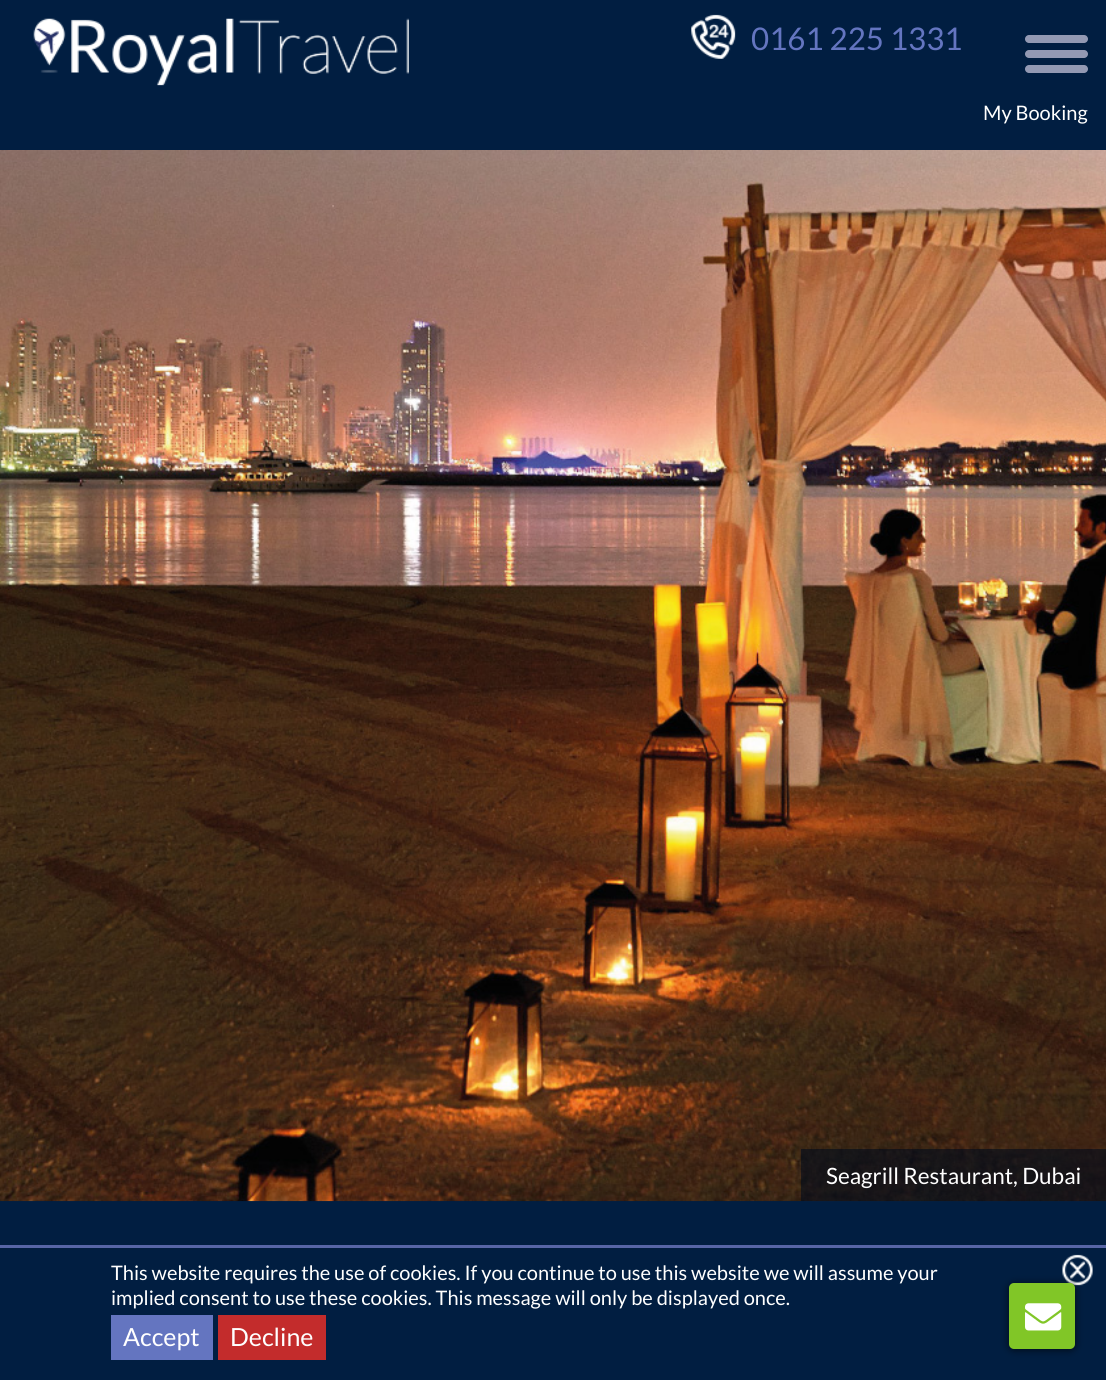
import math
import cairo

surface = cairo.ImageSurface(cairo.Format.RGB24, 1106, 1380)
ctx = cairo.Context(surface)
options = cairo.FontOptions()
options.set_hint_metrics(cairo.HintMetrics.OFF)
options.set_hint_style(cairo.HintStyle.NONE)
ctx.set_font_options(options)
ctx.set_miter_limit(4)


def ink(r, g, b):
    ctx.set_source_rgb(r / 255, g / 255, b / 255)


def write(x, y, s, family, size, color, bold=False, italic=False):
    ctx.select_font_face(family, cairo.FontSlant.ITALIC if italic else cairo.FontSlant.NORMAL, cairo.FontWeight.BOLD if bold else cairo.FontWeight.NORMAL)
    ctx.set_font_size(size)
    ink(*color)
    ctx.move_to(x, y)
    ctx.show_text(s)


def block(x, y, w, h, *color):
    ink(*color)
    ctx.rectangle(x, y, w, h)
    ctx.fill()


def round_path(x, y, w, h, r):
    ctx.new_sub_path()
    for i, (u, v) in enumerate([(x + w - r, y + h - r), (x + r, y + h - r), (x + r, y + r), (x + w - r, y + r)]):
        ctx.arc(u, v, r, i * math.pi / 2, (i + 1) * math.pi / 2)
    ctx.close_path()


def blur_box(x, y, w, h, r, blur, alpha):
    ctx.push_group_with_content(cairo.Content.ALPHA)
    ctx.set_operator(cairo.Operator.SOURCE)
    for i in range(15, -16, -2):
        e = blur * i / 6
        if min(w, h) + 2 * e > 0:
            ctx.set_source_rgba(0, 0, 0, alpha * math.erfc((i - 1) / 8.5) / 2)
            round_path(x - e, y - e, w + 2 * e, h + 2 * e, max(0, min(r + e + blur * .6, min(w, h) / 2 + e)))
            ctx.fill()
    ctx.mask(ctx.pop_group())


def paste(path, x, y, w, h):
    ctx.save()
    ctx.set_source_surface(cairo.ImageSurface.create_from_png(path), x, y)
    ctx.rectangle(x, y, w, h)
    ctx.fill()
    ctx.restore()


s1 = dict(family="Lato", size=31.25, color=(100, 117, 192))
s2 = dict(family="Lato", size=20, color=(255, 255, 255))
s3 = dict(family="Lato", size=22.5, color=(255, 255, 255))
s4 = dict(family="Lato", size=25, color=(255, 255, 255))

ink(1, 30, 65)
ctx.paint()
paste("pic1.png", 691, 14, 45, 45)
write(751, 50, "0161 225 1331", **s1)
ink(147, 153, 179)
round_path(1025, 35, 63, 8, 4)
ctx.fill()
round_path(1025, 50, 63, 8, 4)
ctx.fill()
round_path(1025, 65, 63, 8, 4)
ctx.fill()
paste("pic2.png", 33, 18, 376, 68)
write(983, 120, "My Booking", **s2)
paste("pic3.png", 0, 150, 1106, 1052)
ctx.set_source_rgba(0.004, 0.043, 0.11, 0.6)
ctx.rectangle(801, 1149, 305, 52)
ctx.fill()
write(826, 1184, "Seagrill Restaurant, Dubai", **s3)
paste("pic5.png", 1062, 1254, 31, 32)
ink(0, 0, 0)
blur_box(1009, 1284, 66, 66, 5, 4, 0.65)
ink(129, 198, 39)
round_path(1009, 1283, 66, 66, 5)
ctx.fill()
paste("pic4.png", 1025, 1303, 37, 28)
block(0, 1245, 1106, 3, 87, 101, 166)
write(111, 1280, "This website requires the use of cookies. If you continue to use this website we will assume your", **s2)
write(111, 1305, "implied consent to use these cookies. This message will only be displayed once.", **s2)
block(111, 1315, 102, 45, 100, 117, 192)
write(123, 1346, "Accept", **s4)
block(218, 1315, 108, 45, 195, 44, 44)
write(230, 1346, "Decline", **s4)
surface.write_to_png("screenshot.png")
